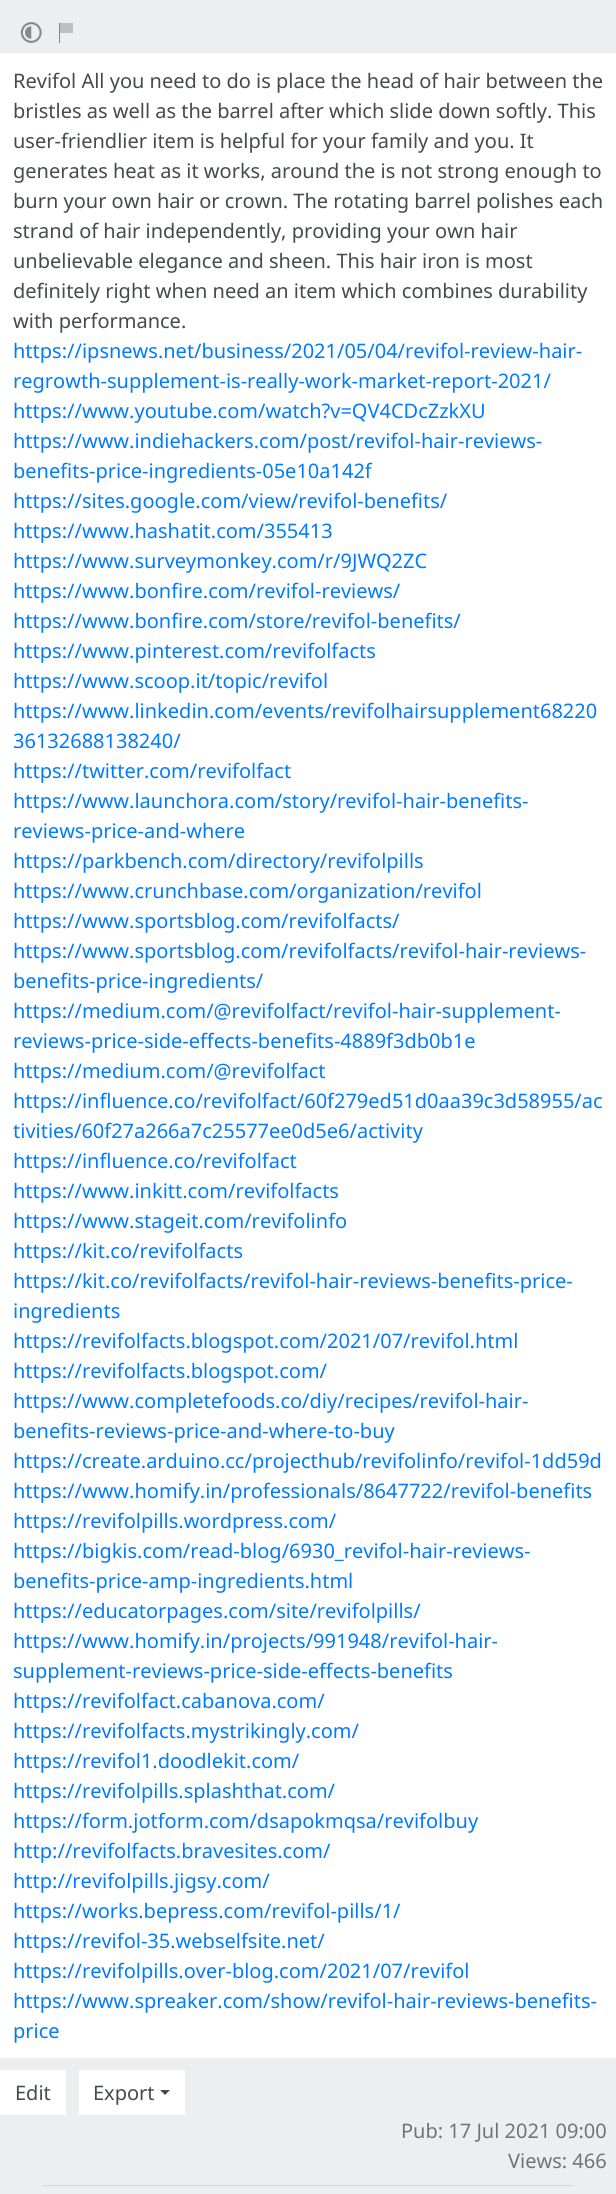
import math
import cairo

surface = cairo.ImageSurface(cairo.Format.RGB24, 616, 2194)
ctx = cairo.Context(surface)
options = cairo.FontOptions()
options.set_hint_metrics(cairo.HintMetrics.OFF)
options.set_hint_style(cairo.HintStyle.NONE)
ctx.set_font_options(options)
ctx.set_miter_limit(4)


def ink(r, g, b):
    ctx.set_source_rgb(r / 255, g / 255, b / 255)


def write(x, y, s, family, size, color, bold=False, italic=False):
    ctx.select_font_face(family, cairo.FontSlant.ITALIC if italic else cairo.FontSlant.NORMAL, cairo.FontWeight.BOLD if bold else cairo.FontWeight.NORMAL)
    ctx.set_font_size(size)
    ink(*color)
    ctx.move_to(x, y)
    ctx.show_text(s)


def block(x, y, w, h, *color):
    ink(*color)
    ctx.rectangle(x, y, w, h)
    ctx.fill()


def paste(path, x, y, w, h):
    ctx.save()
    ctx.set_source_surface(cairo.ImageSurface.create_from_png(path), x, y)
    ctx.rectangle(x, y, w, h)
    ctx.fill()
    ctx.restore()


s1 = dict(family="Noto Sans", size=20, color=(70, 74, 76))
s2 = dict(family="Noto Sans", size=20, color=(0, 123, 255))
s3 = dict(family="Noto Sans", size=20, color=(108, 117, 125))

ink(237, 238, 240)
ctx.paint()
paste("pic1.png", 20, 22, 22, 21)
block(59, 23, 1, 20, 131, 137, 142)
block(60, 23, 13, 10, 189, 192, 194)
block(0, 53, 616, 2005, 255, 255, 255)
write(13, 88, "Revifol All you need to do is place the head of hair between the", **s1)
write(13, 118, "bristles as well as the barrel after which slide down softly. This", **s1)
write(13, 148, "user-friendlier item is helpful for your family and you. It", **s1)
write(13, 178, "generates heat as it works, around the is not strong enough to", **s1)
write(13, 208, "burn your own hair or crown. The rotating barrel polishes each", **s1)
write(13, 238, "strand of hair independently, providing your own hair", **s1)
write(13, 268, "unbelievable elegance and sheen. This hair iron is most", **s1)
write(13, 298, "definitely right when need an item which combines durability", **s1)
write(13, 328, "with performance.", **s1)
write(13, 358, "https://ipsnews.net/business/2021/05/04/revifol-review-hair-", **s2)
write(13, 388, "regrowth-supplement-is-really-work-market-report-2021/", **s2)
write(13, 418, "https://www.youtube.com/watch?v=QV4CDcZzkXU", **s2)
write(13, 448, "https://www.indiehackers.com/post/revifol-hair-reviews-", **s2)
write(13, 478, "benefits-price-ingredients-05e10a142f", **s2)
write(13, 508, "https://sites.google.com/view/revifol-benefits/", **s2)
write(13, 538, "https://www.hashatit.com/355413", **s2)
write(13, 568, "https://www.surveymonkey.com/r/9JWQ2ZC", **s2)
write(13, 598, "https://www.bonfire.com/revifol-reviews/", **s2)
write(13, 628, "https://www.bonfire.com/store/revifol-benefits/", **s2)
write(13, 658, "https://www.pinterest.com/revifolfacts", **s2)
write(13, 688, "https://www.scoop.it/topic/revifol", **s2)
write(13, 718, "https://www.linkedin.com/events/revifolhairsupplement68220", **s2)
write(13, 748, "36132688138240/", **s2)
write(13, 778, "https://twitter.com/revifolfact", **s2)
write(13, 808, "https://www.launchora.com/story/revifol-hair-benefits-", **s2)
write(13, 838, "reviews-price-and-where", **s2)
write(13, 868, "https://parkbench.com/directory/revifolpills", **s2)
write(13, 898, "https://www.crunchbase.com/organization/revifol", **s2)
write(13, 928, "https://www.sportsblog.com/revifolfacts/", **s2)
write(13, 958, "https://www.sportsblog.com/revifolfacts/revifol-hair-reviews-", **s2)
write(13, 988, "benefits-price-ingredients/", **s2)
write(13, 1018, "https://medium.com/@revifolfact/revifol-hair-supplement-", **s2)
write(13, 1048, "reviews-price-side-effects-benefits-4889f3db0b1e", **s2)
write(13, 1078, "https://medium.com/@revifolfact", **s2)
write(13, 1108, "https://influence.co/revifolfact/60f279ed51d0aa39c3d58955/ac", **s2)
write(13, 1138, "tivities/60f27a266a7c25577ee0d5e6/activity", **s2)
write(13, 1168, "https://influence.co/revifolfact", **s2)
write(13, 1198, "https://www.inkitt.com/revifolfacts", **s2)
write(13, 1228, "https://www.stageit.com/revifolinfo", **s2)
write(13, 1258, "https://kit.co/revifolfacts", **s2)
write(13, 1288, "https://kit.co/revifolfacts/revifol-hair-reviews-benefits-price-", **s2)
write(13, 1318, "ingredients", **s2)
write(13, 1348, "https://revifolfacts.blogspot.com/2021/07/revifol.html", **s2)
write(13, 1378, "https://revifolfacts.blogspot.com/", **s2)
write(13, 1408, "https://www.completefoods.co/diy/recipes/revifol-hair-", **s2)
write(13, 1438, "benefits-reviews-price-and-where-to-buy", **s2)
write(13, 1468, "https://create.arduino.cc/projecthub/revifolinfo/revifol-1dd59d", **s2)
write(13, 1498, "https://www.homify.in/professionals/8647722/revifol-benefits", **s2)
write(13, 1528, "https://revifolpills.wordpress.com/", **s2)
write(13, 1558, "https://bigkis.com/read-blog/6930_revifol-hair-reviews-", **s2)
write(13, 1588, "benefits-price-amp-ingredients.html", **s2)
write(13, 1618, "https://educatorpages.com/site/revifolpills/", **s2)
write(13, 1648, "https://www.homify.in/projects/991948/revifol-hair-", **s2)
write(13, 1678, "supplement-reviews-price-side-effects-benefits", **s2)
write(13, 1708, "https://revifolfact.cabanova.com/", **s2)
write(13, 1738, "https://revifolfacts.mystrikingly.com/", **s2)
write(13, 1768, "https://revifol1.doodlekit.com/", **s2)
write(13, 1798, "https://revifolpills.splashthat.com/", **s2)
write(13, 1828, "https://form.jotform.com/dsapokmqsa/revifolbuy", **s2)
write(13, 1858, "http://revifolfacts.bravesites.com/", **s2)
write(13, 1888, "http://revifolpills.jigsy.com/", **s2)
write(13, 1918, "https://works.bepress.com/revifol-pills/1/", **s2)
write(13, 1948, "https://revifol-35.webselfsite.net/", **s2)
write(13, 1978, "https://revifolpills.over-blog.com/2021/07/revifol", **s2)
write(13, 2008, "https://www.spreaker.com/show/revifol-hair-reviews-benefits-", **s2)
write(13, 2038, "price", **s2)
block(0, 2070, 66, 45, 255, 255, 255)
write(15, 2100, "Edit", **s1)
block(79, 2070, 106, 45, 255, 255, 255)
write(93, 2100, "Export", **s1)
ctx.new_path()
ctx.move_to(160, 2090)
ctx.line_to(170, 2090)
ctx.line_to(165, 2095)
ctx.close_path()
ctx.fill()
write(401, 2138, "Pub: 17 Jul 2021 09:00", **s3)
write(508, 2168, "Views: 466", **s3)
block(43, 2185, 531, 1, 213, 214, 216)
surface.write_to_png("screenshot.png")
